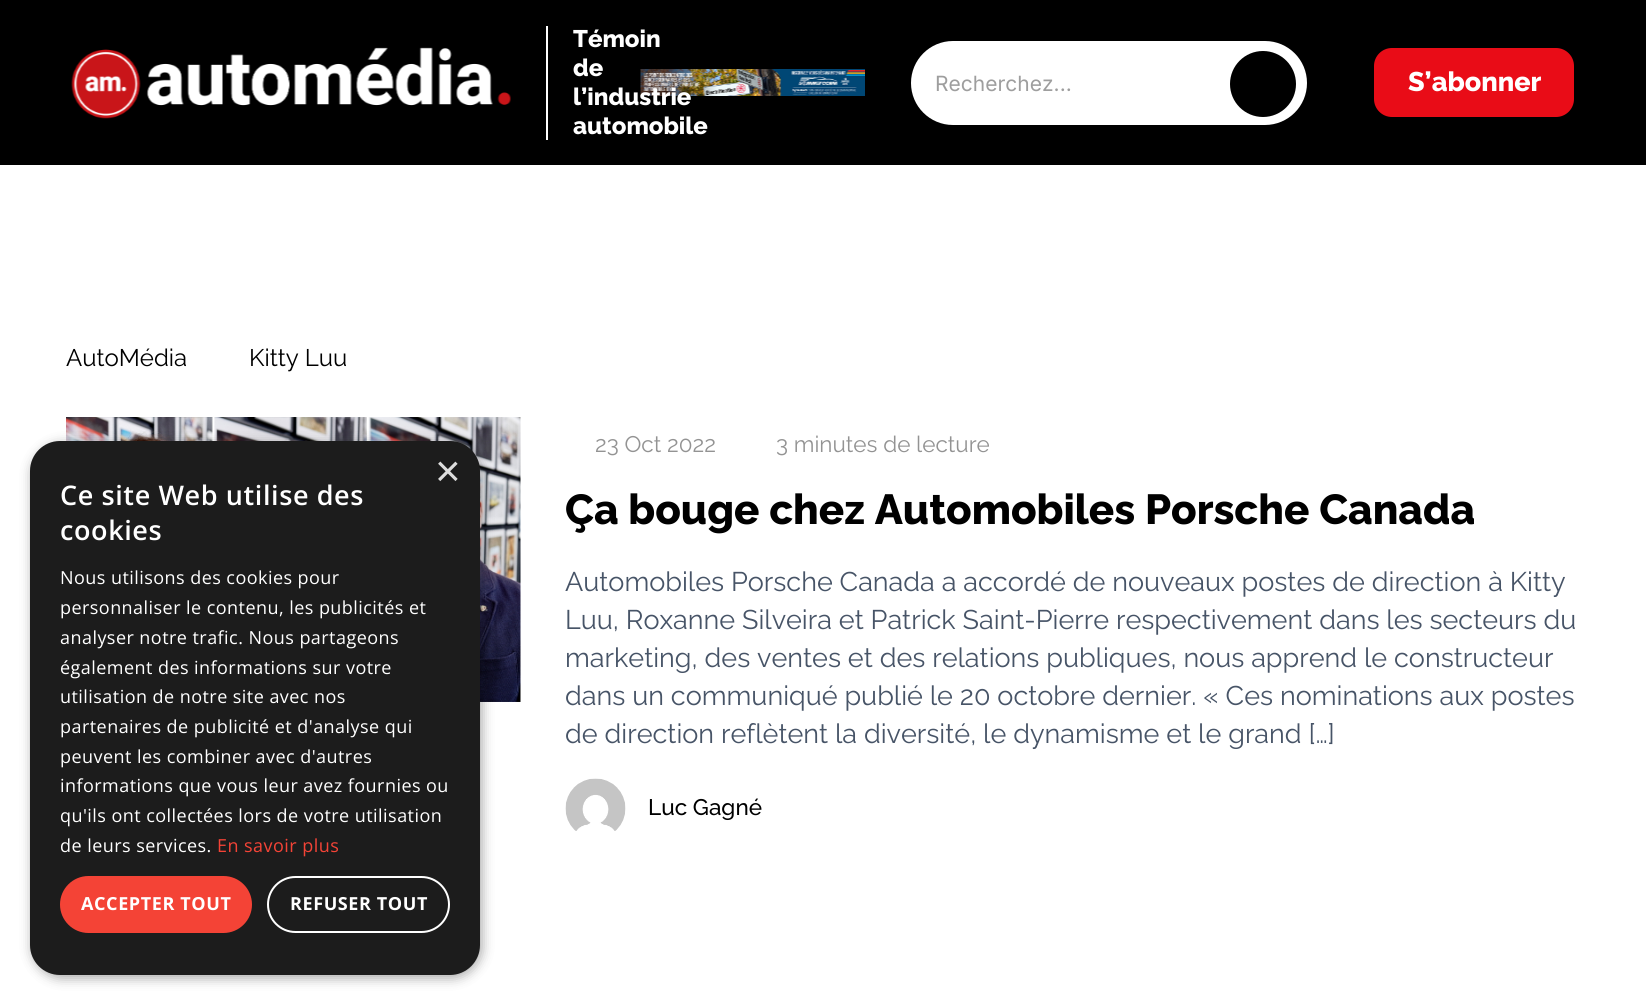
import math
import cairo

surface = cairo.ImageSurface(cairo.Format.RGB24, 1646, 1005)
ctx = cairo.Context(surface)
options = cairo.FontOptions()
options.set_hint_metrics(cairo.HintMetrics.OFF)
options.set_hint_style(cairo.HintStyle.NONE)
ctx.set_font_options(options)
ctx.set_miter_limit(4)


def ink(r, g, b):
    ctx.set_source_rgb(r / 255, g / 255, b / 255)


def write(x, y, s, family, size, color, bold=False, italic=False):
    ctx.select_font_face(family, cairo.FontSlant.ITALIC if italic else cairo.FontSlant.NORMAL, cairo.FontWeight.BOLD if bold else cairo.FontWeight.NORMAL)
    ctx.set_font_size(size)
    ink(*color)
    ctx.move_to(x, y)
    ctx.show_text(s)


def write_spaced(x, y, s, letter, word):
    ctx.move_to(x, y)
    for ch in s:
        ctx.show_text(ch)
        ctx.rel_move_to(letter + word * (ch == ' '), 0)


def block(x, y, w, h, *color):
    ink(*color)
    ctx.rectangle(x, y, w, h)
    ctx.fill()


def round_path(x, y, w, h, r):
    ctx.new_sub_path()
    for i, (u, v) in enumerate([(x + w - r, y + h - r), (x + r, y + h - r), (x + r, y + r), (x + w - r, y + r)]):
        ctx.arc(u, v, r, i * math.pi / 2, (i + 1) * math.pi / 2)
    ctx.close_path()


def blur_box(x, y, w, h, r, blur, alpha):
    ctx.push_group_with_content(cairo.Content.ALPHA)
    ctx.set_operator(cairo.Operator.SOURCE)
    for i in range(15, -16, -2):
        e = blur * i / 6
        if min(w, h) + 2 * e > 0:
            ctx.set_source_rgba(0, 0, 0, alpha * math.erfc((i - 1) / 8.5) / 2)
            round_path(x - e, y - e, w + 2 * e, h + 2 * e, max(0, min(r + e + blur * .6, min(w, h) / 2 + e)))
            ctx.fill()
    ctx.mask(ctx.pop_group())


def paste(path, x, y, w, h):
    ctx.save()
    ctx.set_source_surface(cairo.ImageSurface.create_from_png(path), x, y)
    ctx.rectangle(x, y, w, h)
    ctx.fill()
    ctx.restore()


s1 = dict(family="Raleway ExtraBold", size=24, color=(255, 255, 255))
s2 = dict(family="Inter", size=21, color=(158, 158, 158))
s3 = dict(family="Raleway ExtraBold", size=27, color=(255, 255, 255))
s4 = dict(family="Raleway", size=24, color=(0, 0, 0))
s5 = dict(family="Raleway", size=22.5, color=(147, 147, 147))
s6 = dict(family="Raleway ExtraBold", size=42, color=(0, 0, 0))
s7 = dict(family="Raleway", size=27, color=(71, 84, 103))
s8 = dict(family="Raleway Medium", size=22.5, color=(0, 0, 0))
s9 = dict(family="Liberation Sans", size=44, color=(221, 221, 221))

ink(255, 255, 255)
ctx.paint()
block(0, 0, 1646, 165, 0, 0, 0)
paste("pic1.png", 71, 47, 440, 72)
block(546, 26, 2, 114, 255, 255, 255)
write(573, 47, "Témoin", **s1)
write(573, 76, "de", **s1)
paste("pic2.png", 640, 69, 225, 27)
write(573, 105, "l’industrie", **s1)
write(573, 134, "automobile", **s1)
round_path(911, 41, 396, 84, 42)
ctx.fill()
write(935, 91, "Recherchez...", **s2)
ink(0, 0, 0)
ctx.new_path()
ctx.arc(1263, 84, 33, 0, 2 * math.pi)
ctx.fill()
ink(233, 12, 23)
round_path(1374, 48, 200, 69, 18)
ctx.fill()
write(1408, 91, "S’abonner", **s3)
write(66, 366, "AutoMédia", **s4)
write(249, 366, "Kitty Luu", **s4)
paste("pic3.png", 66, 417, 455, 285)
write(595, 452, "23 Oct 2022", **s5)
write(776, 452, "3 minutes de lecture", **s5)
write(565, 524, "Ça bouge chez Automobiles Porsche Canada", **s6)
write(565, 591, "Automobiles Porsche Canada a accordé de nouveaux postes de direction à Kitty", **s7)
write(565, 629, "Luu, Roxanne Silveira et Patrick Saint-Pierre respectivement dans les secteurs du", **s7)
write(565, 667, "marketing, des ventes et des relations publiques, nous apprend le constructeur", **s7)
write(565, 705, "dans un communiqué publié le 20 octobre dernier. « Ces nominations aux postes", **s7)
write(565, 743, "de direction reflètent la diversité, le dynamisme et le grand […]", **s7)
paste("pic4.png", 565, 778, 61, 53)
write(648, 815, "Luc Gagné", **s8)
ink(0, 0, 0)
blur_box(32, 444, 450, 534, 30, 6, 0.35)
ink(28, 28, 28)
round_path(30, 441, 450, 534, 30)
ctx.fill()
write(435, 486, "×", **s9)
ctx.select_font_face("Open Sans SemiBold")
ctx.set_font_size(27)
ink(255, 255, 255)
write_spaced(60, 505, "Ce site Web utilise des", 0.6, 0)
write_spaced(60, 540, "cookies", 0.6, 0)
ctx.select_font_face("Open Sans")
ctx.set_font_size(18)
write_spaced(60, 584, "Nous utilisons des cookies pour", 0.45, 0)
write_spaced(60, 614, "personnaliser le contenu, les publicités et", 0.45, 0)
write_spaced(60, 644, "analyser notre trafic. Nous partageons", 0.45, 0)
write_spaced(60, 674, "également des informations sur votre", 0.45, 0)
write_spaced(60, 703, "utilisation de notre site avec nos", 0.45, 0)
write_spaced(60, 733, "partenaires de publicité et d'analyse qui", 0.45, 0)
write_spaced(60, 763, "peuvent les combiner avec d'autres", 0.45, 0)
write_spaced(60, 792, "informations que vous leur avez fournies ou", 0.45, 0)
write_spaced(60, 822, "qu'ils ont collectées lors de votre utilisation", 0.45, 0)
write_spaced(60, 852, "de leurs services.", 0.45, 0)
ink(244, 67, 54)
write_spaced(217, 852, "En savoir plus", 0.45, 0)
round_path(60, 876, 192, 57, 28.5)
ctx.fill()
ctx.select_font_face("Open Sans", cairo.FontSlant.NORMAL, cairo.FontWeight.BOLD)
ink(255, 255, 255)
write_spaced(81, 910, "ACCEPTER TOUT", 0.6, 0)
round_path(268, 877, 181, 55, 27.5)
ctx.stroke()
write_spaced(290, 910, "REFUSER TOUT", 0.6, 0)
surface.write_to_png("screenshot.png")
